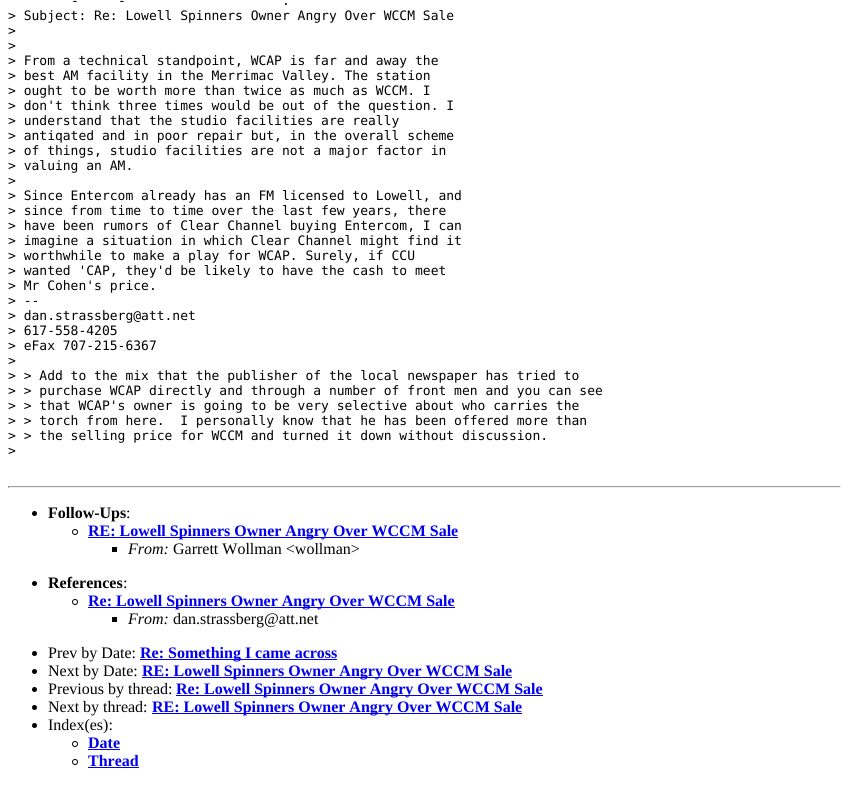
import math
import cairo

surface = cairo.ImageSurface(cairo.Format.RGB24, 849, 786)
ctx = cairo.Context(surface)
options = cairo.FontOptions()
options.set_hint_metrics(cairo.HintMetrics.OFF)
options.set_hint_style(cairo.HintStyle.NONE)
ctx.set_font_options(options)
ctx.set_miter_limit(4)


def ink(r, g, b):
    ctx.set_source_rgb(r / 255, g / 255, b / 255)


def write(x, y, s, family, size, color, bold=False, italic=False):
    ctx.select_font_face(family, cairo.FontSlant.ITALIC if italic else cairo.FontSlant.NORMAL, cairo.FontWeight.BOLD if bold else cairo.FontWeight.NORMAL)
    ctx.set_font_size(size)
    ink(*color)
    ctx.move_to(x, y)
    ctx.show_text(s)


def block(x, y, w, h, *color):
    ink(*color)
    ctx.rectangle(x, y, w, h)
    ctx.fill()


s1 = dict(family="DejaVu Sans Mono", size=13, color=(0, 0, 0))
s2 = dict(family="Liberation Serif", size=16, color=(0, 0, 0), bold=True)
s3 = dict(family="Liberation Serif", size=16, color=(0, 0, 0))
s4 = dict(family="Liberation Serif", size=16, color=(0, 0, 238), bold=True)
s5 = dict(family="Liberation Serif", size=16, color=(0, 0, 0), italic=True)

ink(255, 255, 255)
ctx.paint()
write(71, 5, "-", **s1)
write(118, 5, "-", **s1)
write(282, 5, ".", **s1)
write(8, 20, "> Subject: Re: Lowell Spinners Owner Angry Over WCCM Sale", **s1)
write(8, 35, ">", **s1)
write(8, 50, ">", **s1)
write(8, 65, "> From a technical standpoint, WCAP is far and away the", **s1)
write(8, 80, "> best AM facility in the Merrimac Valley. The station", **s1)
write(8, 95, "> ought to be worth more than twice as much as WCCM. I", **s1)
write(8, 110, "> don't think three times would be out of the question. I", **s1)
write(8, 125, "> understand that the studio facilities are really", **s1)
write(8, 140, "> antiqated and in poor repair but, in the overall scheme", **s1)
write(8, 155, "> of things, studio facilities are not a major factor in", **s1)
write(8, 170, "> valuing an AM.", **s1)
write(8, 185, ">", **s1)
write(8, 200, "> Since Entercom already has an FM licensed to Lowell, and", **s1)
write(8, 215, "> since from time to time over the last few years, there", **s1)
write(8, 230, "> have been rumors of Clear Channel buying Entercom, I can", **s1)
write(8, 245, "> imagine a situation in which Clear Channel might find it", **s1)
write(8, 260, "> worthwhile to make a play for WCAP. Surely, if CCU", **s1)
write(8, 275, "> wanted 'CAP, they'd be likely to have the cash to meet", **s1)
write(8, 290, "> Mr Cohen's price.", **s1)
write(8, 305, "> --", **s1)
write(8, 320, "> dan.strassberg@att.net", **s1)
write(8, 335, "> 617-558-4205", **s1)
write(8, 350, "> eFax 707-215-6367", **s1)
write(8, 365, ">", **s1)
write(8, 380, "> > Add to the mix that the publisher of the local newspaper has tried to", **s1)
write(8, 395, "> > purchase WCAP directly and through a number of front men and you can see", **s1)
write(8, 410, "> > that WCAP's owner is going to be very selective about who carries the", **s1)
write(8, 425, "> > torch from here.  I personally know that he has been offered more than", **s1)
write(8, 440, "> > the selling price for WCCM and turned it down without discussion.", **s1)
write(8, 455, ">", **s1)
block(8, 486, 833, 1, 159, 159, 159)
block(840, 486, 1, 2, 238, 238, 238)
block(8, 487, 833, 1, 238, 238, 238)
block(8, 486, 1, 2, 159, 159, 159)
ink(0, 0, 0)
ctx.new_path()
ctx.arc(34.5, 513.5, 2.5, 0, 2 * math.pi)
ctx.fill()
write(48, 518, "Follow-Ups", **s2)
write(126, 518, ":", **s3)
ctx.new_path()
ctx.arc(75, 532, 2.5, 0, 2 * math.pi)
ctx.set_line_width(1)
ctx.stroke()
block(88, 537, 370, 1, 0, 0, 238)
write(88, 536, "RE: Lowell Spinners Owner Angry Over WCCM Sale", **s4)
block(112, 547, 5, 5, 0, 0, 0)
write(128, 554, "From:", **s5)
write(173, 554, "Garrett Wollman <wollman>", **s3)
ctx.new_path()
ctx.arc(34.5, 583.5, 2.5, 0, 2 * math.pi)
ctx.fill()
write(48, 588, "References", **s2)
write(123, 588, ":", **s3)
ctx.new_path()
ctx.arc(75, 602, 2.5, 0, 2 * math.pi)
ctx.stroke()
block(88, 607, 367, 1, 0, 0, 238)
write(88, 606, "Re: Lowell Spinners Owner Angry Over WCCM Sale", **s4)
block(112, 617, 5, 5, 0, 0, 0)
write(128, 624, "From:", **s5)
write(173, 624, "dan.strassberg@att.net", **s3)
ctx.new_path()
ctx.arc(34.5, 653.5, 2.5, 0, 2 * math.pi)
ctx.fill()
write(48, 658, "Prev by Date:", **s3)
block(140, 659, 197, 1, 0, 0, 238)
write(140, 658, "Re: Something I came across", **s4)
ink(0, 0, 0)
ctx.new_path()
ctx.arc(34.5, 671.5, 2.5, 0, 2 * math.pi)
ctx.fill()
write(48, 676, "Next by Date:", **s3)
block(142, 677, 370, 1, 0, 0, 238)
write(142, 676, "RE: Lowell Spinners Owner Angry Over WCCM Sale", **s4)
ink(0, 0, 0)
ctx.new_path()
ctx.arc(34.5, 689.5, 2.5, 0, 2 * math.pi)
ctx.fill()
write(48, 694, "Previous by thread:", **s3)
block(176, 695, 367, 1, 0, 0, 238)
write(176, 694, "Re: Lowell Spinners Owner Angry Over WCCM Sale", **s4)
ink(0, 0, 0)
ctx.new_path()
ctx.arc(34.5, 707.5, 2.5, 0, 2 * math.pi)
ctx.fill()
write(48, 712, "Next by thread:", **s3)
block(152, 713, 370, 1, 0, 0, 238)
write(152, 712, "RE: Lowell Spinners Owner Angry Over WCCM Sale", **s4)
ink(0, 0, 0)
ctx.new_path()
ctx.arc(34.5, 725.5, 2.5, 0, 2 * math.pi)
ctx.fill()
write(48, 730, "Index(es):", **s3)
ctx.new_path()
ctx.arc(75, 744, 2.5, 0, 2 * math.pi)
ctx.stroke()
write(88, 748, "Date", **s4)
block(88, 749, 32, 1, 0, 0, 238)
ctx.new_path()
ctx.arc(75, 762, 2.5, 0, 2 * math.pi)
ink(0, 0, 0)
ctx.stroke()
write(88, 766, "Thread", **s4)
block(88, 767, 51, 1, 0, 0, 238)
surface.write_to_png("screenshot.png")
